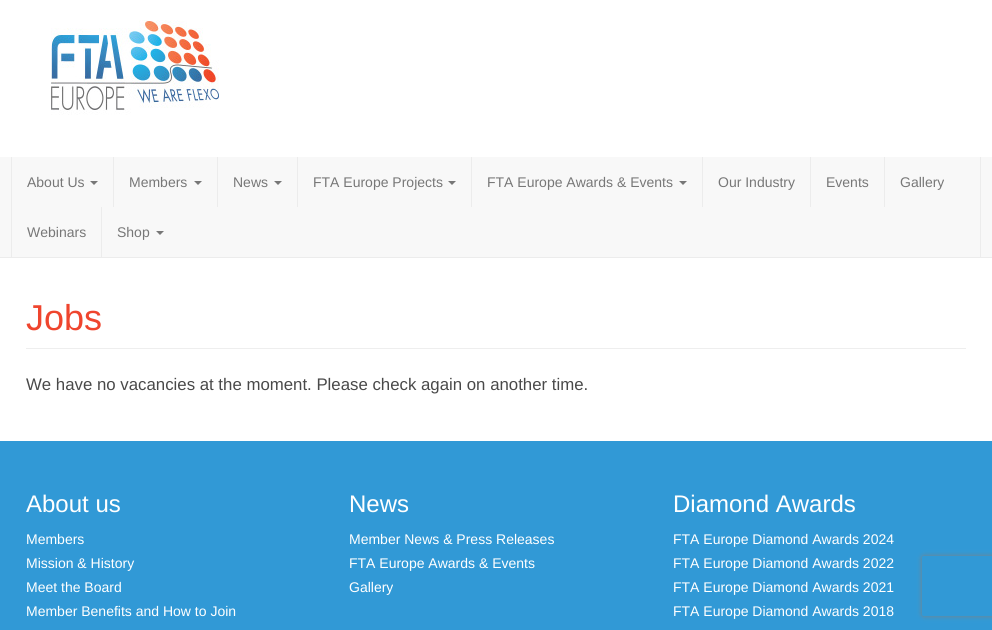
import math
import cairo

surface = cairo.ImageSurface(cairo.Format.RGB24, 992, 630)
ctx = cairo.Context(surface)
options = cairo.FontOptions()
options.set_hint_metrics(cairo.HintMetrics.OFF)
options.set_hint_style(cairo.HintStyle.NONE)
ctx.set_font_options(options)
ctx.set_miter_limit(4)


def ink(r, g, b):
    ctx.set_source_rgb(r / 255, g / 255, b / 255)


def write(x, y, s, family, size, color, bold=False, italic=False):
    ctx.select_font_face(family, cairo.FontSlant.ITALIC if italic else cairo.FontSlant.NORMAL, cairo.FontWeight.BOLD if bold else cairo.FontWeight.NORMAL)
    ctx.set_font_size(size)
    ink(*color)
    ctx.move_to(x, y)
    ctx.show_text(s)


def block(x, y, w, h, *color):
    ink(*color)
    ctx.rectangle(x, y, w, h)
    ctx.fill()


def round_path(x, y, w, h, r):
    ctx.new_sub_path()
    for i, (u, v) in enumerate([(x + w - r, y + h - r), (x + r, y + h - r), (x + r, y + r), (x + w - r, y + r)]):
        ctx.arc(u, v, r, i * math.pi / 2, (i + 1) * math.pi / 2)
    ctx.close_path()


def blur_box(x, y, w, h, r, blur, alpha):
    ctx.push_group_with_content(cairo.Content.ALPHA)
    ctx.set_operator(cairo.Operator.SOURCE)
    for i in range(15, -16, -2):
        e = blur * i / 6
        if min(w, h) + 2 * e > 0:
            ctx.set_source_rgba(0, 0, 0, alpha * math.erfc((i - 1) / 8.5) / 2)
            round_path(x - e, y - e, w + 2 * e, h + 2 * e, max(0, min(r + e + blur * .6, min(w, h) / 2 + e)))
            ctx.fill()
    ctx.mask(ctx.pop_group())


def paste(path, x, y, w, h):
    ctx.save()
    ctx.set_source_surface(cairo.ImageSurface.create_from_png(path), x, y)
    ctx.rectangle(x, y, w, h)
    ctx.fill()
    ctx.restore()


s1 = dict(family="Liberation Sans", size=14, color=(119, 119, 119))
s2 = dict(family="Liberation Sans", size=36, color=(239, 69, 46))
s3 = dict(family="Liberation Sans", size=16.8, color=(73, 73, 73))
s4 = dict(family="Liberation Sans", size=24, color=(255, 255, 255))
s5 = dict(family="Liberation Sans", size=14, color=(255, 255, 255))

ink(255, 255, 255)
ctx.paint()
paste("pic1.png", 51, 20, 168, 95)
block(0, 157, 992, 100, 248, 248, 248)
block(0, 257, 992, 1, 236, 236, 236)
block(980, 157, 1, 100, 236, 236, 236)
block(11, 157, 1, 100, 236, 236, 236)
write(27, 187, "About Us", **s1)
ctx.new_path()
ctx.move_to(90, 181)
ctx.line_to(98, 181)
ctx.line_to(94, 185)
ctx.close_path()
ctx.fill()
block(113, 157, 1, 50, 236, 236, 236)
write(129, 187, "Members", **s1)
ctx.new_path()
ctx.move_to(194, 181)
ctx.line_to(202, 181)
ctx.line_to(198, 185)
ctx.close_path()
ctx.fill()
block(217, 157, 1, 50, 236, 236, 236)
write(233, 187, "News", **s1)
ctx.new_path()
ctx.move_to(274, 181)
ctx.line_to(282, 181)
ctx.line_to(278, 185)
ctx.close_path()
ctx.fill()
block(297, 157, 1, 50, 236, 236, 236)
write(313, 187, "FTA Europe Projects", **s1)
ctx.new_path()
ctx.move_to(448, 181)
ctx.line_to(456, 181)
ctx.line_to(452, 185)
ctx.close_path()
ctx.fill()
block(471, 157, 1, 50, 236, 236, 236)
write(487, 187, "FTA Europe Awards & Events", **s1)
ctx.new_path()
ctx.move_to(679, 181)
ctx.line_to(687, 181)
ctx.line_to(683, 185)
ctx.close_path()
ctx.fill()
block(702, 157, 1, 50, 236, 236, 236)
write(718, 187, "Our Industry", **s1)
block(810, 157, 1, 50, 236, 236, 236)
write(826, 187, "Events", **s1)
block(884, 157, 1, 50, 236, 236, 236)
write(900, 187, "Gallery", **s1)
write(27, 237, "Webinars", **s1)
block(101, 207, 1, 50, 236, 236, 236)
write(117, 237, "Shop", **s1)
ctx.new_path()
ctx.move_to(156, 231)
ctx.line_to(164, 231)
ctx.line_to(160, 235)
ctx.close_path()
ctx.fill()
block(26, 348, 940, 1, 238, 238, 238)
write(26, 330, "Jobs", **s2)
write(26, 390, "We have no vacancies at the moment. Please check again on another time.", **s3)
block(0, 441, 992, 189, 49, 153, 214)
write(26, 512, "About us", **s4)
write(26, 544, "Members", **s5)
write(26, 568, "Mission & History", **s5)
write(26, 592, "Meet the Board", **s5)
write(26, 616, "Member Benefits and How to Join", **s5)
write(349, 512, "News", **s4)
write(349, 544, "Member News & Press Releases", **s5)
write(349, 568, "FTA Europe Awards & Events", **s5)
write(349, 592, "Gallery", **s5)
write(673, 512, "Diamond Awards", **s4)
write(673, 544, "FTA Europe Diamond Awards 2024", **s5)
write(673, 568, "FTA Europe Diamond Awards 2022", **s5)
write(673, 592, "FTA Europe Diamond Awards 2021", **s5)
write(673, 616, "FTA Europe Diamond Awards 2018", **s5)
ctx.save()
ctx.set_fill_rule(cairo.FillRule.EVEN_ODD)
ctx.new_path()
ctx.move_to(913, 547)
ctx.line_to(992, 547)
ctx.line_to(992, 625)
ctx.line_to(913, 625)
ctx.close_path()
ctx.move_to(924, 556)
ctx.line_to(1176, 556)
ctx.curve_to(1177, 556, 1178, 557, 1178, 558)
ctx.line_to(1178, 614)
ctx.curve_to(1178, 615, 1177, 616, 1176, 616)
ctx.line_to(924, 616)
ctx.curve_to(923, 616, 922, 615, 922, 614)
ctx.line_to(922, 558)
ctx.curve_to(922, 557, 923, 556, 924, 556)
ctx.close_path()
ctx.clip()
ink(128, 128, 128)
blur_box(922, 556, 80, 60, 2, 2.5, 1)
ctx.restore()
surface.write_to_png("screenshot.png")
